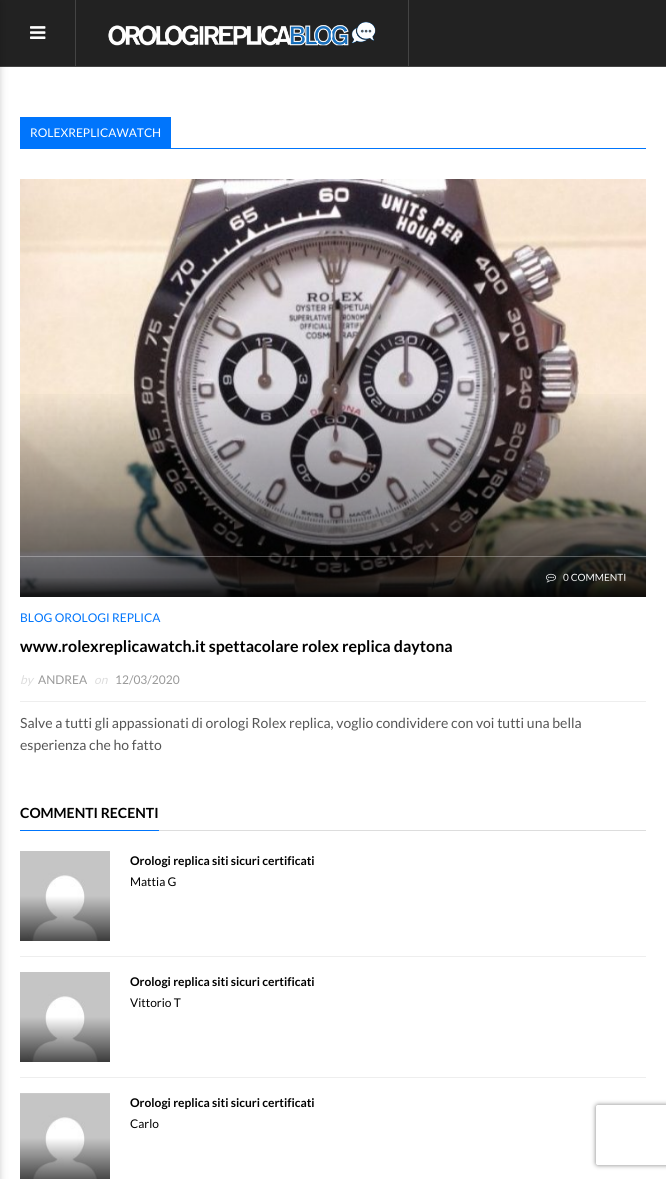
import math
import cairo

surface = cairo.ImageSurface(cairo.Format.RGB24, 666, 1179)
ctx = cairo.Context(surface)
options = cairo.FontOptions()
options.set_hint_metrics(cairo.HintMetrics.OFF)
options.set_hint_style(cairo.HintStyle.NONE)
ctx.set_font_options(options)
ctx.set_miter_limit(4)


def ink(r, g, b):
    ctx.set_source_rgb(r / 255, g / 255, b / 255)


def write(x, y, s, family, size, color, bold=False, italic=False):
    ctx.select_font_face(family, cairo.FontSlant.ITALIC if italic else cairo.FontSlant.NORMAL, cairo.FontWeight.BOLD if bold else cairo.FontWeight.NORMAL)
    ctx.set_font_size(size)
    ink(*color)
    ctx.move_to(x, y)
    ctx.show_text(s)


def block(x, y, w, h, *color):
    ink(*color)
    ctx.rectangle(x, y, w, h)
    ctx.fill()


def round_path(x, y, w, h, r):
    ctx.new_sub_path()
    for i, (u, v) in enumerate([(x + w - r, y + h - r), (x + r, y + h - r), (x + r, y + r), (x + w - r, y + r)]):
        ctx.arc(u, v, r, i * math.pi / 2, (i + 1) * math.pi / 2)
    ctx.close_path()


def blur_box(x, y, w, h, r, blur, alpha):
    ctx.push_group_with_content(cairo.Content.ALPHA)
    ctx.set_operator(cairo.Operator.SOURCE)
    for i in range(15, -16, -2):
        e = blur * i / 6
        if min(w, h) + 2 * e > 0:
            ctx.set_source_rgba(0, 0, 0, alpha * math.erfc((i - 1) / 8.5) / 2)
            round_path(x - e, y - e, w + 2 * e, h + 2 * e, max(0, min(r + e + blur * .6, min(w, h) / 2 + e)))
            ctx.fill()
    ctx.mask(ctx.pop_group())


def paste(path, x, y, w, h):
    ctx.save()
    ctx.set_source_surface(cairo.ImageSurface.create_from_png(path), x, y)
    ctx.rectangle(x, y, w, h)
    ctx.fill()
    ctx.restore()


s1 = dict(family="Lato", size=12, color=(255, 255, 255))
s2 = dict(family="Lato", size=10, color=(255, 255, 255))
s3 = dict(family="Lato", size=12, color=(0, 117, 252))
s4 = dict(family="Lato", size=16, color=(0, 0, 0), bold=True)
s5 = dict(family="Lato", size=12, color=(221, 221, 221), italic=True)
s6 = dict(family="Lato", size=12, color=(153, 153, 153))
s7 = dict(family="Lato", size=14, color=(85, 85, 85))
s8 = dict(family="Lato", size=14, color=(0, 0, 0), bold=True)
s9 = dict(family="Lato", size=12, color=(0, 0, 0), bold=True)
s10 = dict(family="Lato", size=12, color=(0, 0, 0))

ink(255, 255, 255)
ctx.paint()
block(0, 0, 666, 66, 34, 34, 34)
block(0, 66, 666, 1, 68, 68, 68)
ink(0, 0, 0)
blur_box(-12, 2, 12, 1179, 0, 4, 0.2)
block(75, 0, 1, 66, 68, 68, 68)
paste("pic1.png", 30, 26, 16, 13)
block(408, 0, 1, 66, 68, 68, 68)
paste("pic2.png", 108, 21, 268, 25)
block(20, 148, 626, 1, 0, 117, 252)
block(20, 117, 151, 31, 0, 117, 252)
write(30, 137, "ROLEXREPLICAWATCH", **s1)
paste("pic3.png", 20, 179, 626, 418)
gradient = cairo.LinearGradient(333, 388, 333, 597)
gradient.add_color_stop_rgba(0, 0, 0, 0, 0)
gradient.add_color_stop_rgba(1, 0, 0, 0, 0.7)
ctx.set_source(gradient)
ctx.rectangle(20, 394, 626, 203)
ctx.fill()
ctx.set_source_rgba(1, 1, 1, 0.3)
ctx.rectangle(20, 556, 626, 1)
ctx.fill()
paste("pic4.png", 546, 573, 10, 10)
write(563, 581, "0 COMMENTI", **s2)
gradient = cairo.LinearGradient(333, 577, 333, 597)
gradient.add_color_stop_rgba(0, 0, 0, 0, 0)
gradient.add_color_stop_rgba(1, 0, 0, 0, 0.7)
ctx.set_source(gradient)
ctx.rectangle(20, 578, 626, 19)
ctx.fill()
write(20, 622, "BLOG OROLOGI REPLICA", **s3)
write(20, 652, "www.rolexreplicawatch.it spettacolare rolex replica daytona", **s4)
write(20, 684, "by", **s5)
write(38, 684, "ANDREA", **s6)
write(94, 684, "on", **s5)
write(115, 684, "12/03/2020", **s6)
block(20, 701, 626, 1, 238, 238, 238)
write(20, 728, "Salve a tutti gli appassionati di orologi Rolex replica, voglio condividere con voi tutti una bella", **s7)
write(20, 750, "esperienza che ho fatto", **s7)
block(159, 830, 487, 1, 221, 221, 221)
block(20, 830, 139, 1, 0, 117, 252)
write(20, 818, "COMMENTI RECENTI", **s8)
block(20, 956, 626, 1, 238, 238, 238)
paste("pic5.png", 20, 851, 90, 90)
write(130, 865, "Orologi replica siti sicuri certificati", **s9)
write(130, 886, "Mattia G", **s10)
block(20, 1077, 626, 1, 238, 238, 238)
paste("pic5.png", 20, 972, 90, 90)
write(130, 986, "Orologi replica siti sicuri certificati", **s9)
write(130, 1007, "Vittorio T", **s10)
paste("pic6.png", 20, 1093, 90, 86)
write(130, 1107, "Orologi replica siti sicuri certificati", **s9)
write(130, 1128, "Carlo", **s10)
ctx.save()
ctx.set_fill_rule(cairo.FillRule.EVEN_ODD)
ctx.new_path()
ctx.move_to(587, 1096)
ctx.line_to(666, 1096)
ctx.line_to(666, 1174)
ctx.line_to(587, 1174)
ctx.close_path()
ctx.move_to(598, 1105)
ctx.line_to(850, 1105)
ctx.curve_to(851, 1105, 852, 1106, 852, 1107)
ctx.line_to(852, 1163)
ctx.curve_to(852, 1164, 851, 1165, 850, 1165)
ctx.line_to(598, 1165)
ctx.curve_to(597, 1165, 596, 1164, 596, 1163)
ctx.line_to(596, 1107)
ctx.curve_to(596, 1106, 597, 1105, 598, 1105)
ctx.close_path()
ctx.clip()
ink(128, 128, 128)
blur_box(596, 1105, 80, 60, 2, 2.5, 1)
ctx.restore()
surface.write_to_png("screenshot.png")
